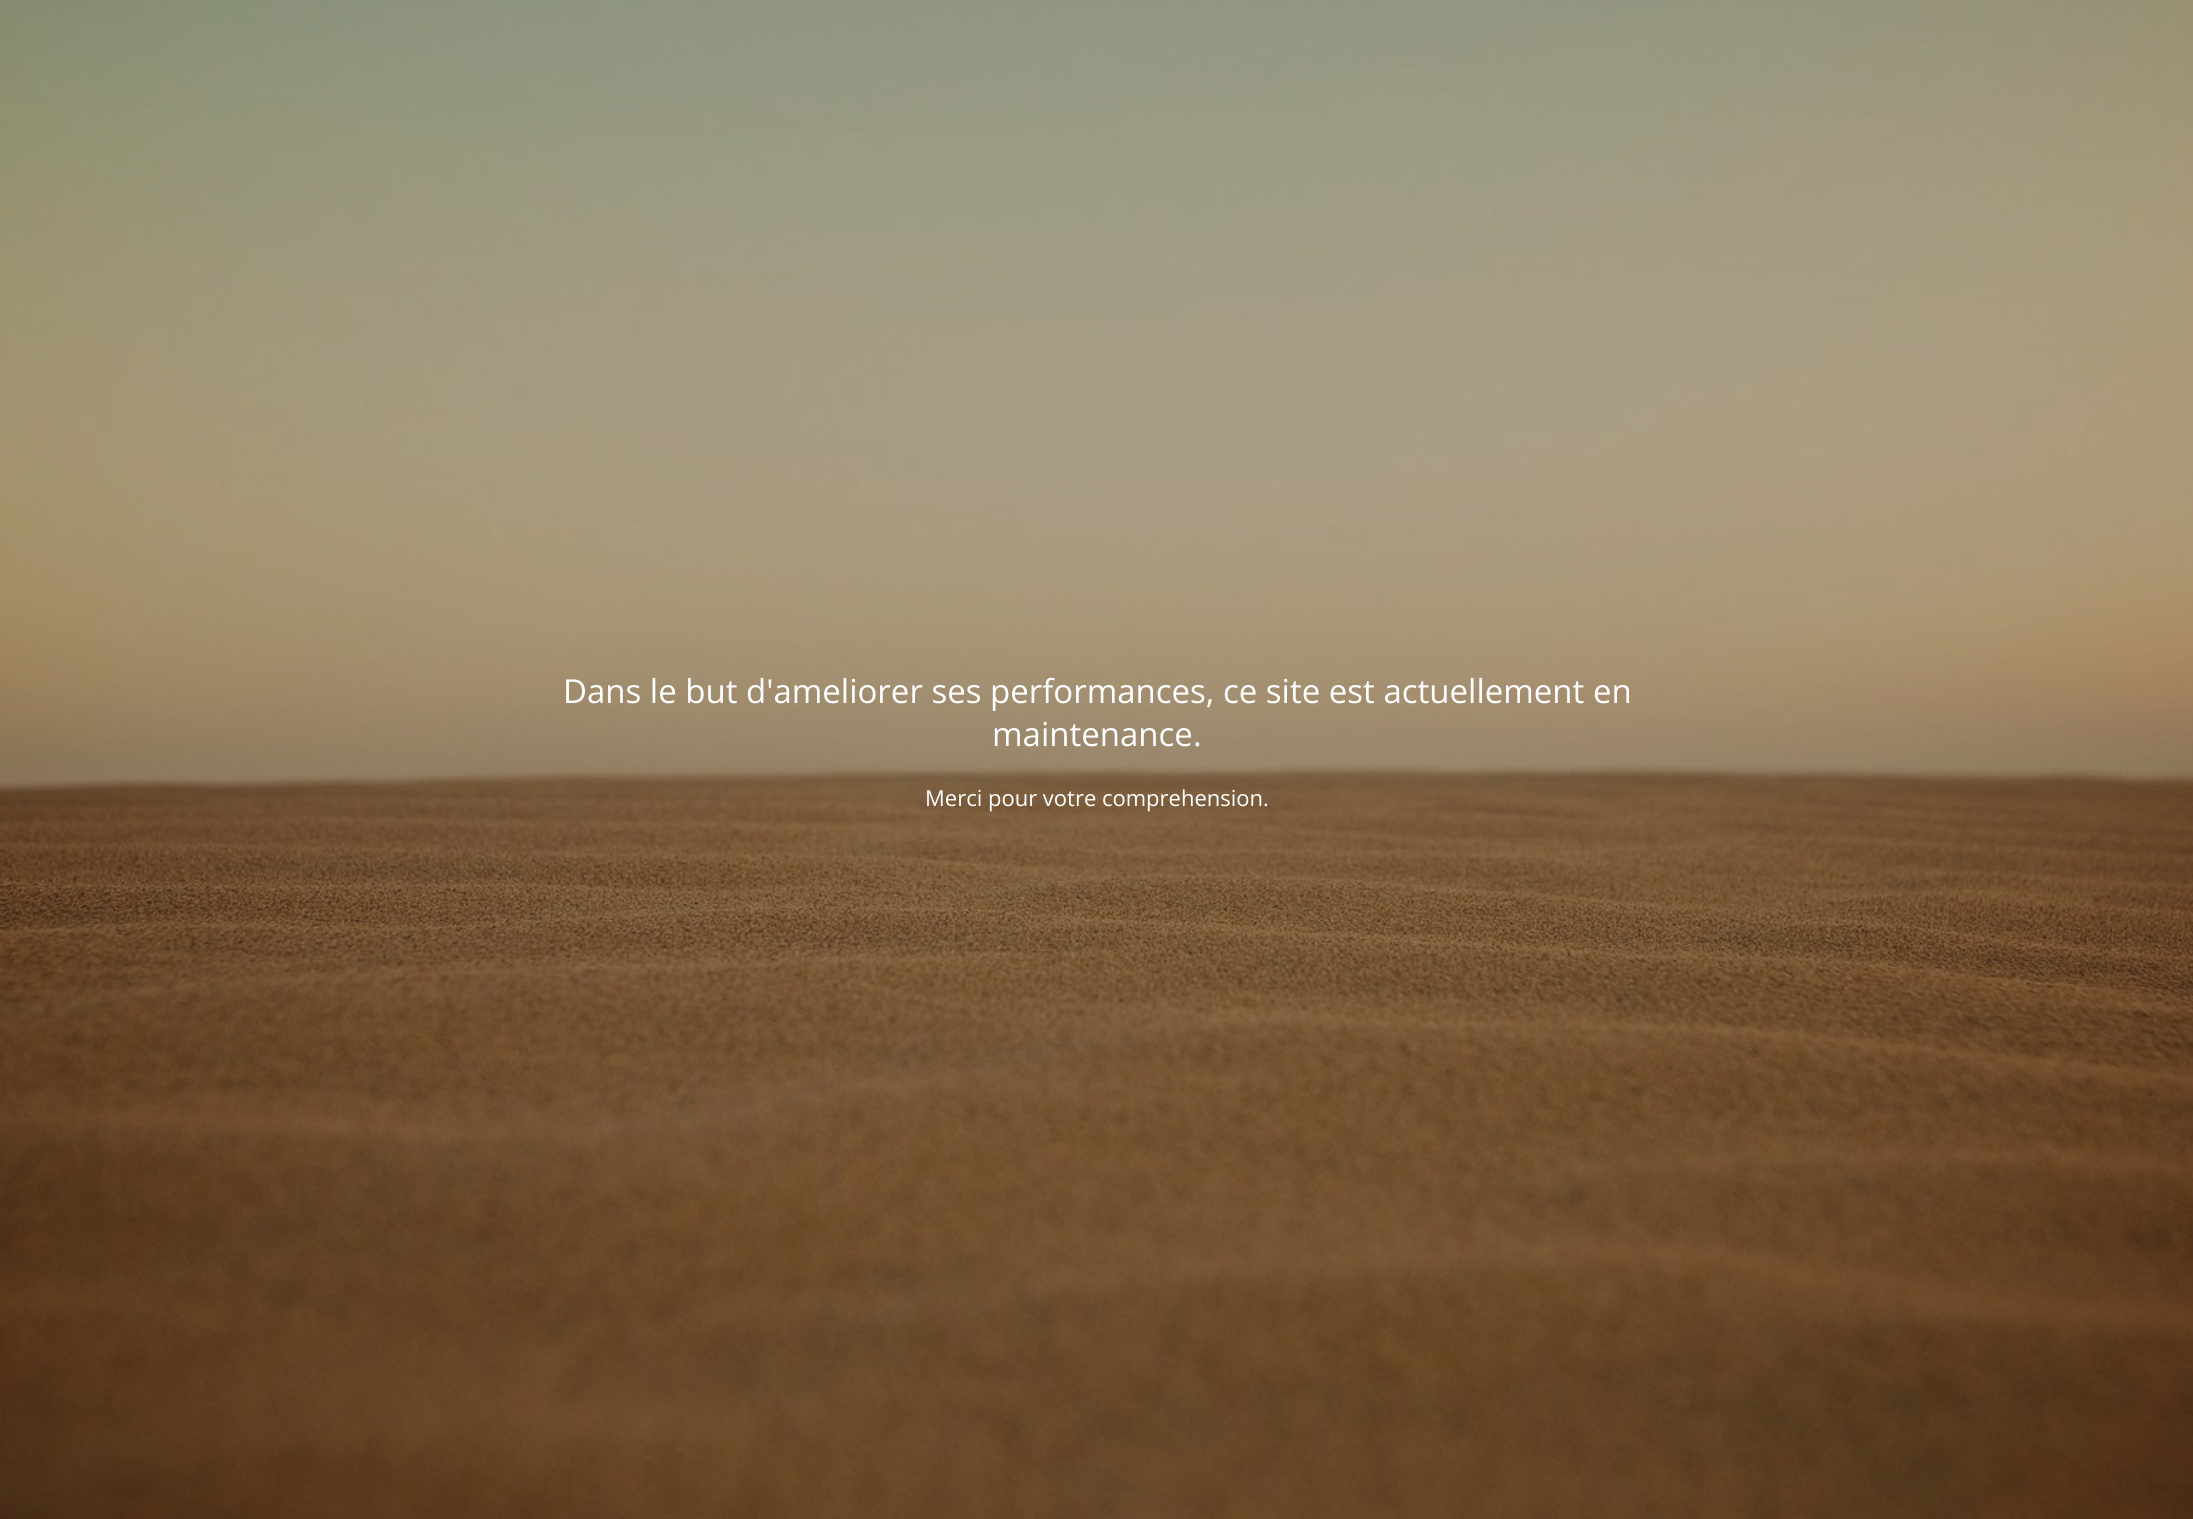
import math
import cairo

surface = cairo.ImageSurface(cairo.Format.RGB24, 2193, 1519)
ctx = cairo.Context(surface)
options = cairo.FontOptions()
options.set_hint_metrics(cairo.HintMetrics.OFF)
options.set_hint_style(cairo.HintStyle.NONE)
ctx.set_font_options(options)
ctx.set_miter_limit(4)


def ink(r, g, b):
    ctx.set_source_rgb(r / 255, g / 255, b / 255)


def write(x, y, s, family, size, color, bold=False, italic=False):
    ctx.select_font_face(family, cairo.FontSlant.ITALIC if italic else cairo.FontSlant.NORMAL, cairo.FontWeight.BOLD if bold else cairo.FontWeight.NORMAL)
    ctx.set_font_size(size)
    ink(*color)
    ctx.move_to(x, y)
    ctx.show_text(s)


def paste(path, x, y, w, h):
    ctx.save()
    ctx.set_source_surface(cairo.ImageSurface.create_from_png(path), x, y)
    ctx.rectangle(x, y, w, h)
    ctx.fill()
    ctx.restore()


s1 = dict(family="Open Sans", size=33, color=(255, 255, 255))
s2 = dict(family="Open Sans", size=22, color=(255, 255, 255))

ink(255, 255, 255)
ctx.paint()
paste("pic1.png", 0, 0, 2193, 1519)
write(563, 703, "Dans le but d'ameliorer ses performances, ce site est actuellement en", **s1)
write(992, 746, "maintenance.", **s1)
write(925, 806, "Merci pour votre comprehension.", **s2)
surface.write_to_png("screenshot.png")
